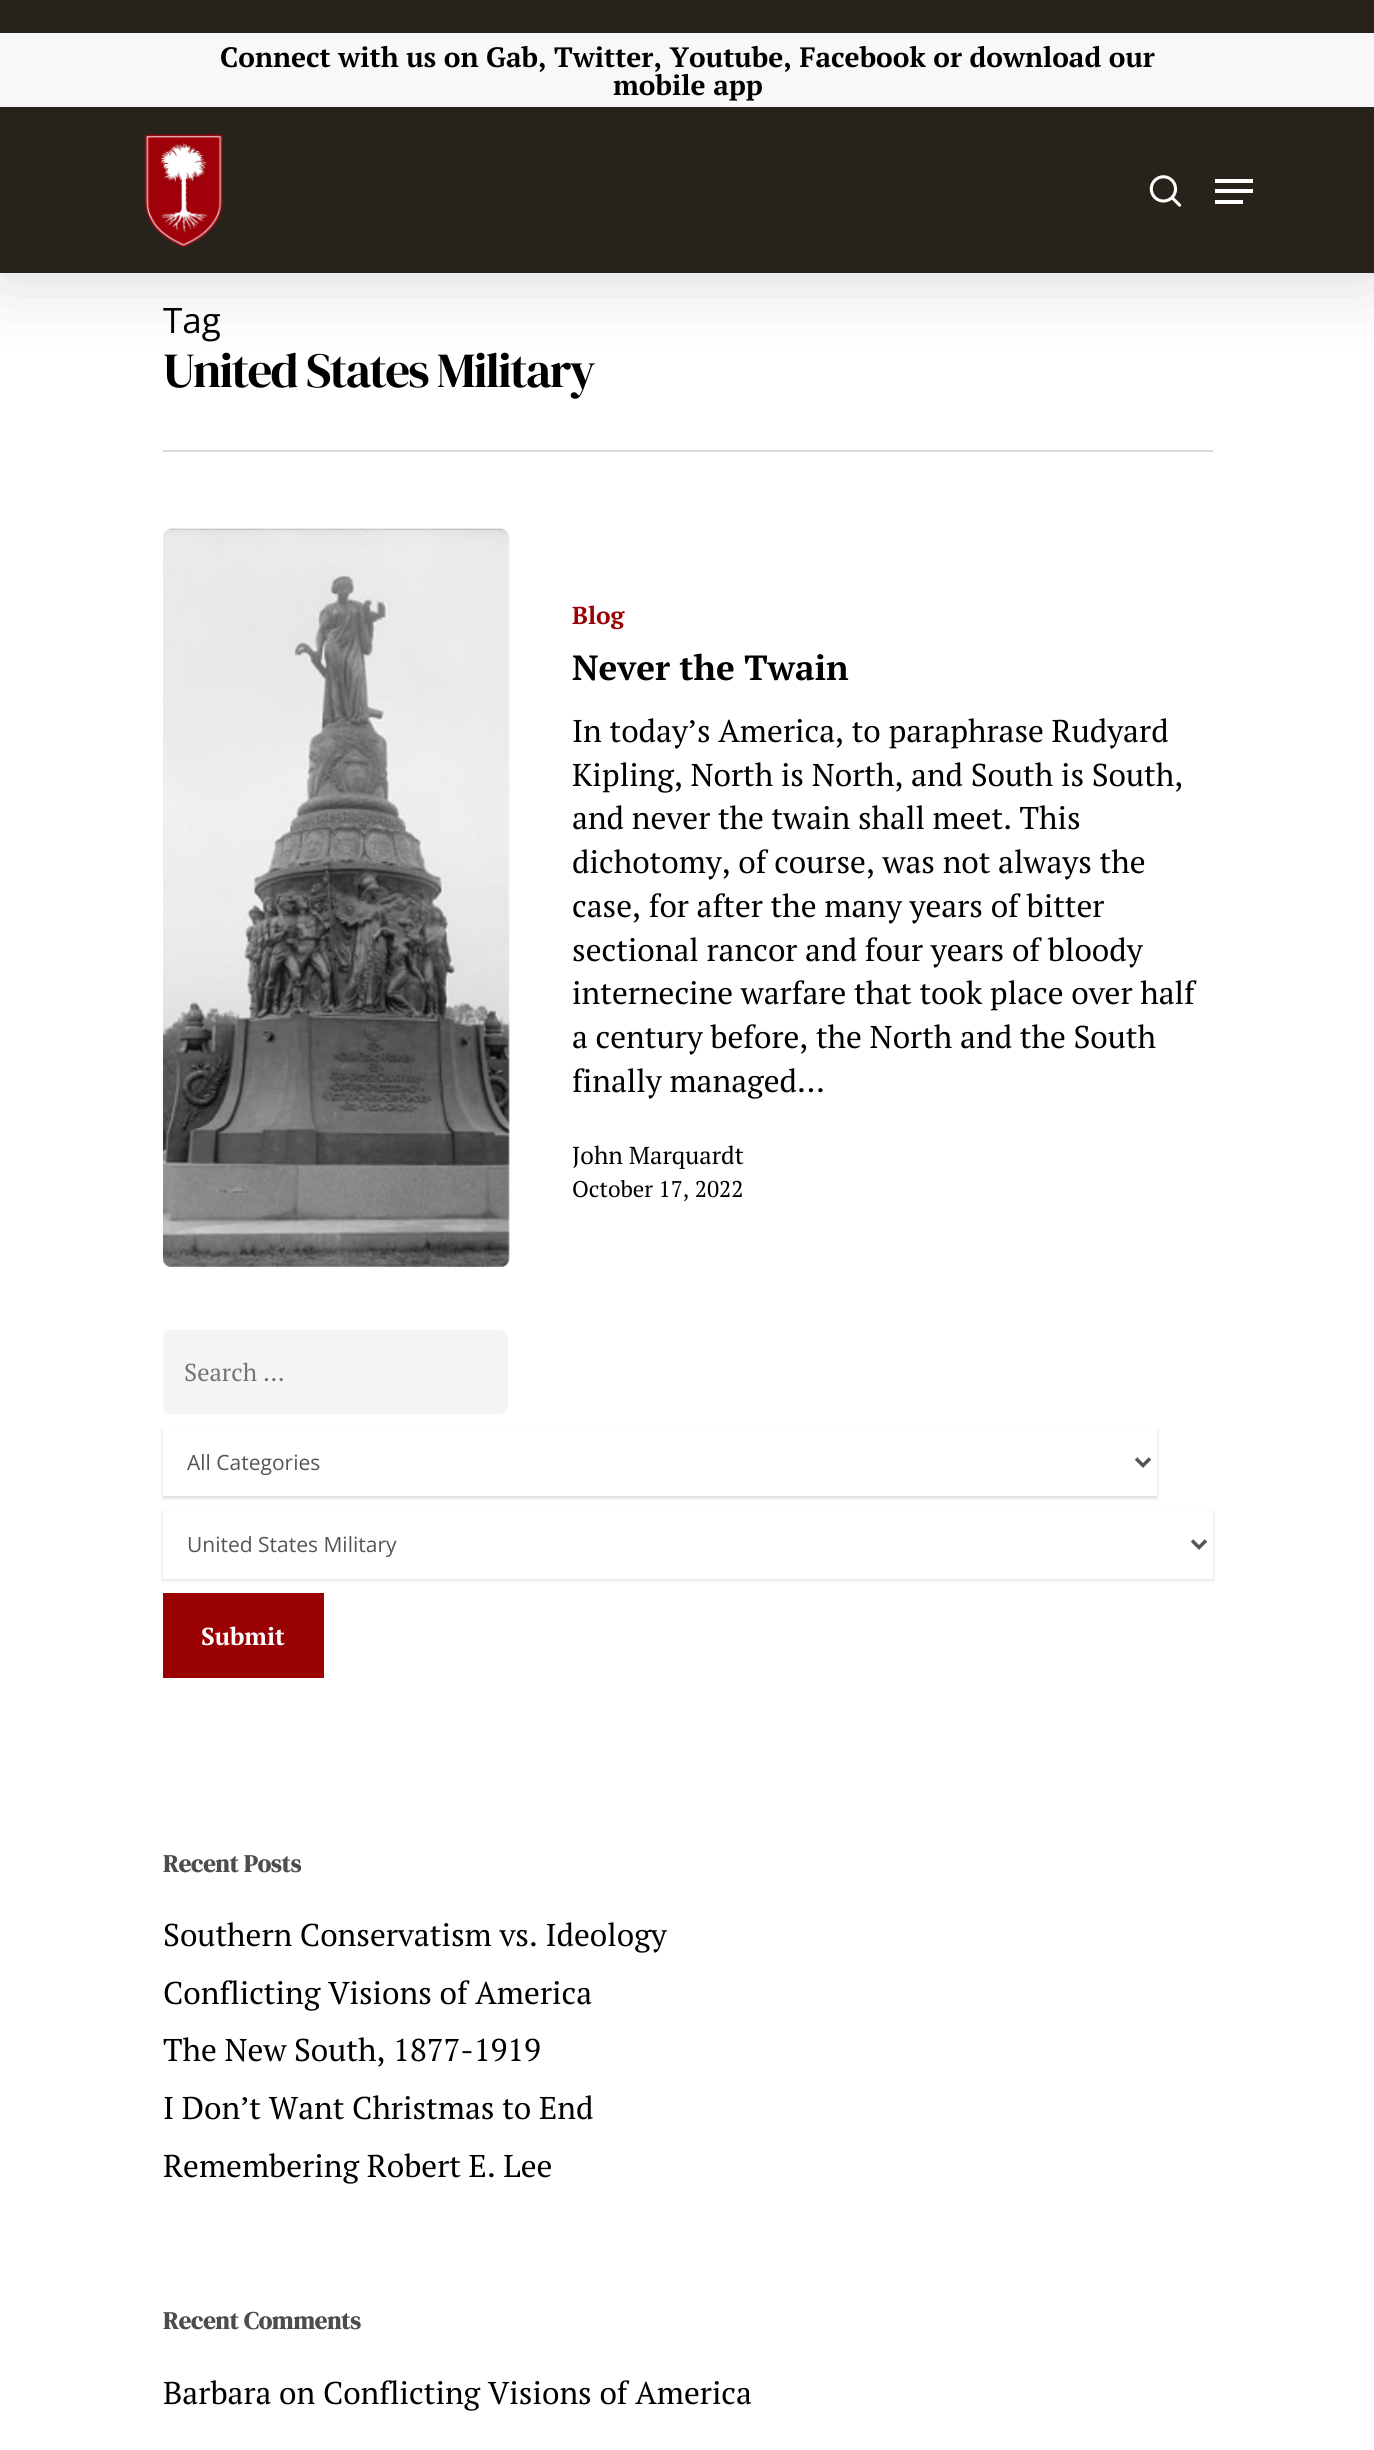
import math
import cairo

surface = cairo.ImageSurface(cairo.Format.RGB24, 1374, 2450)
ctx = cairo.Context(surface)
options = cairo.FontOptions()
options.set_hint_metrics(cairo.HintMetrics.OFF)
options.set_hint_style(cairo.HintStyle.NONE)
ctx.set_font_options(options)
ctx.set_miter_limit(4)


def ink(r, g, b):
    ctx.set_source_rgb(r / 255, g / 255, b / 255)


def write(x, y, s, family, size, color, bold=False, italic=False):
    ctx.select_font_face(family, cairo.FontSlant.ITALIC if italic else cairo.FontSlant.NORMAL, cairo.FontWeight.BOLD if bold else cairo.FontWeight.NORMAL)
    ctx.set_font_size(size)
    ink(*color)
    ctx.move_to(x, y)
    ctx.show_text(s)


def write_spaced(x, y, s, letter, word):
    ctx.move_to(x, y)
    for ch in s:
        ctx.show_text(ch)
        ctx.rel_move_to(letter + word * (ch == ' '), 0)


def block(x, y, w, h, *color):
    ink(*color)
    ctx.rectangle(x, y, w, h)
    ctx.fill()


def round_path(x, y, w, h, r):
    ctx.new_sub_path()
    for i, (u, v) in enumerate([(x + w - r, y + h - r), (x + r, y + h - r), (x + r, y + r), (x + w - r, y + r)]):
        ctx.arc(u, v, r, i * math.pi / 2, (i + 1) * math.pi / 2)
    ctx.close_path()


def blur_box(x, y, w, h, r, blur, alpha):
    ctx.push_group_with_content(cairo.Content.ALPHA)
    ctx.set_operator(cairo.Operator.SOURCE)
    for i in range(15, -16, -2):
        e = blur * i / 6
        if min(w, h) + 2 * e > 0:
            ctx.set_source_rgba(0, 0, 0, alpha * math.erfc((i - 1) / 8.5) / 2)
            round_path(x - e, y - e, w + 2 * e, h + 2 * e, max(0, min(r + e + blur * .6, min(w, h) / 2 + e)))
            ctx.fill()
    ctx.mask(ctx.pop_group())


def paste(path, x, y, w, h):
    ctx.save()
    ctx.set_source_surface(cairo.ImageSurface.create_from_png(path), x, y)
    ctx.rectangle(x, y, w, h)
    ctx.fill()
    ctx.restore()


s1 = dict(family="PT Serif", size=28, color=(0, 0, 0), bold=True)
s2 = dict(family="Open Sans", size=35, color=(0, 0, 0))
s3 = dict(family="PT Serif", size=24.5, color=(154, 1, 2), bold=True)
s4 = dict(family="PT Serif", size=35, color=(0, 0, 0), bold=True)
s5 = dict(family="PT Serif", size=31.5, color=(0, 0, 0))
s6 = dict(family="PT Serif", size=24.5, color=(0, 0, 0))
s7 = dict(family="PT Serif", size=22.75, color=(0, 0, 0))
s8 = dict(family="PT Serif", size=24.5, color=(117, 117, 117))
s9 = dict(family="Open Sans", size=21, color=(85, 85, 85))
s10 = dict(family="PT Serif", size=24.5, color=(255, 255, 255), bold=True)
s11 = dict(family="DM Serif Display", size=24.5, color=(77, 77, 77), bold=True)

ink(255, 255, 255)
ctx.paint()
ink(0, 0, 0)
blur_box(0, 40, 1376, 238, 0, 39.5, 0.15)
block(0, 107, 1374, 166, 39, 35, 27)
block(0, 0, 1374, 33, 39, 35, 27)
block(0, 33, 1374, 74, 248, 248, 248)
write(220, 67, "Connect with us on Gab, Twitter, Youtube, Facebook or download our", **s1)
write(613, 95, "mobile app", **s1)
paste("pic1.png", 144, 134, 79, 114)
paste("pic2.png", 1149, 175, 33, 32)
block(1215, 179, 38, 4, 255, 255, 255)
block(1215, 200, 28, 4, 255, 255, 255)
block(1215, 189, 38, 4, 255, 255, 255)
block(163, 450, 1050, 2, 217, 217, 217)
write(163, 333, "Tag", **s2)
ctx.select_font_face("DM Serif Display")
ctx.set_font_size(49)
write_spaced(163, 387, "United States Military", -1.75, 0)
paste("pic3.png", 163, 528, 347, 740)
write(572, 624, "Blog", **s3)
write(572, 680, "Never the Twain", **s4)
write(572, 742, "In today’s America, to paraphrase Rudyard", **s5)
write(572, 786, "Kipling, North is North, and South is South,", **s5)
write(572, 829, "and never the twain shall meet. This", **s5)
write(572, 873, "dichotomy, of course, was not always the", **s5)
write(572, 917, "case, for after the many years of bitter", **s5)
write(572, 961, "sectional rancor and four years of bloody", **s5)
write(572, 1004, "internecine warfare that took place over half", **s5)
write(572, 1048, "a century before, the North and the South", **s5)
write(572, 1092, "finally managed…", **s5)
write(572, 1164, "John Marquardt", **s6)
write(572, 1197, "October 17, 2022", **s7)
ink(245, 245, 245)
round_path(163, 1330, 345, 84, 7)
ctx.fill()
write(184, 1381, "Search …", **s8)
ink(0, 0, 0)
blur_box(163, 1430, 994, 68, 0, 2, 0.16)
block(163, 1428, 994, 68, 255, 255, 255)
ctx.new_path()
ctx.move_to(1136, 1458.5)
ctx.line_to(1143, 1465.5)
ctx.line_to(1150, 1458.5)
ink(85, 85, 85)
ctx.set_line_width(3.5)
ctx.stroke()
write(187, 1470, "All Categories", **s9)
ink(0, 0, 0)
blur_box(163, 1512, 1050, 68, 0, 2, 0.16)
block(163, 1510, 1050, 69, 255, 255, 255)
ctx.new_path()
ctx.move_to(1192, 1540.5)
ctx.line_to(1199, 1547.5)
ctx.line_to(1206, 1540.5)
ink(85, 85, 85)
ctx.stroke()
write(187, 1552, "United States Military", **s9)
block(163, 1593, 161, 85, 154, 1, 2)
write(201, 1645, "Submit", **s10)
write(163, 1872, "Recent Posts", **s11)
write(163, 1946, "Southern Conservatism vs. Ideology", **s5)
write(163, 2004, "Conflicting Visions of America", **s5)
write(163, 2061, "The New South, 1877-1919", **s5)
write(163, 2119, "I Don’t Want Christmas to End", **s5)
write(163, 2177, "Remembering Robert E. Lee", **s5)
write(163, 2329, "Recent Comments", **s11)
write(163, 2404, "Barbara on Conflicting Visions of America", **s5)
surface.write_to_png("screenshot.png")
